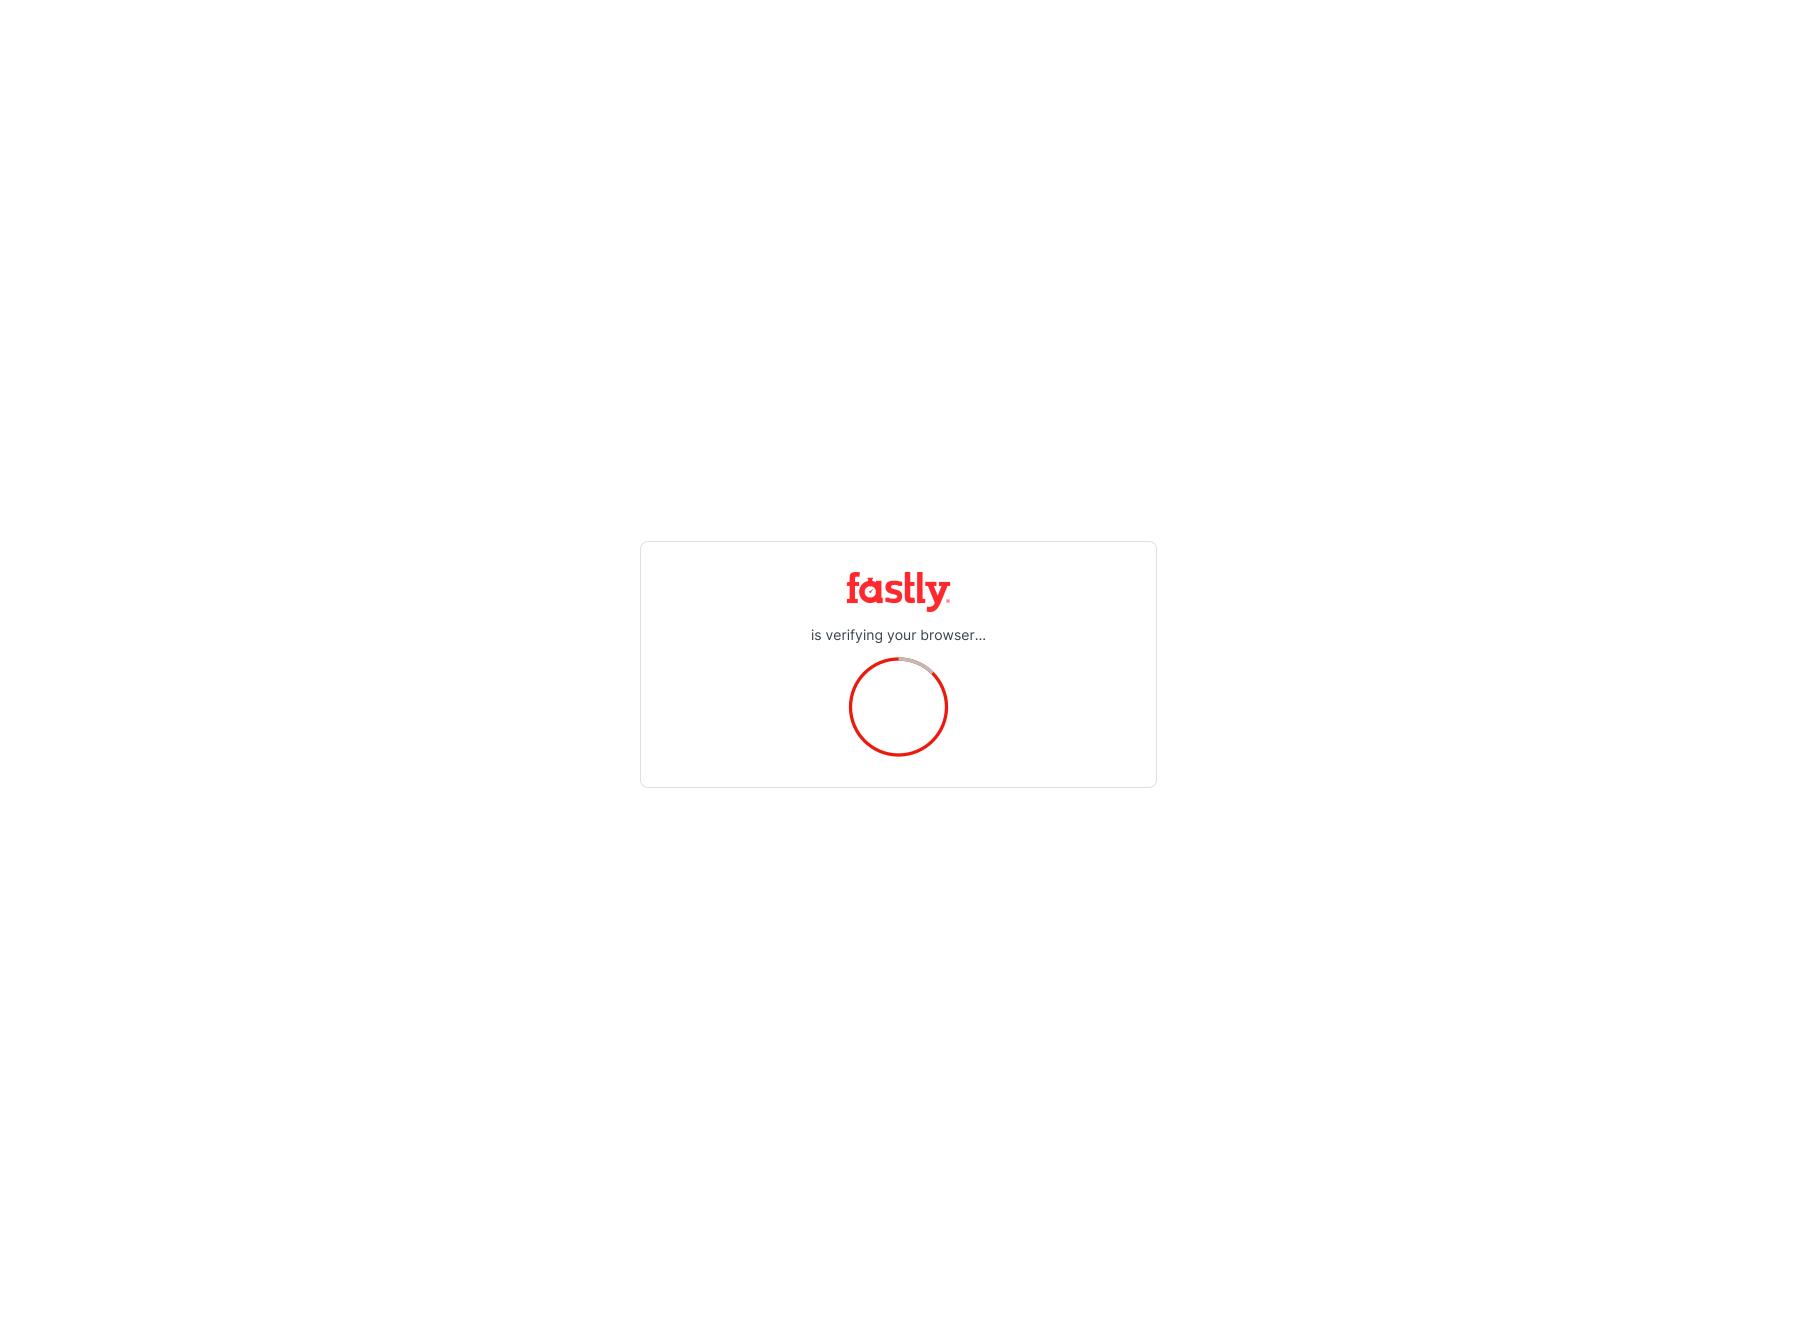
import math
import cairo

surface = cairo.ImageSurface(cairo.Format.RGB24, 1797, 1329)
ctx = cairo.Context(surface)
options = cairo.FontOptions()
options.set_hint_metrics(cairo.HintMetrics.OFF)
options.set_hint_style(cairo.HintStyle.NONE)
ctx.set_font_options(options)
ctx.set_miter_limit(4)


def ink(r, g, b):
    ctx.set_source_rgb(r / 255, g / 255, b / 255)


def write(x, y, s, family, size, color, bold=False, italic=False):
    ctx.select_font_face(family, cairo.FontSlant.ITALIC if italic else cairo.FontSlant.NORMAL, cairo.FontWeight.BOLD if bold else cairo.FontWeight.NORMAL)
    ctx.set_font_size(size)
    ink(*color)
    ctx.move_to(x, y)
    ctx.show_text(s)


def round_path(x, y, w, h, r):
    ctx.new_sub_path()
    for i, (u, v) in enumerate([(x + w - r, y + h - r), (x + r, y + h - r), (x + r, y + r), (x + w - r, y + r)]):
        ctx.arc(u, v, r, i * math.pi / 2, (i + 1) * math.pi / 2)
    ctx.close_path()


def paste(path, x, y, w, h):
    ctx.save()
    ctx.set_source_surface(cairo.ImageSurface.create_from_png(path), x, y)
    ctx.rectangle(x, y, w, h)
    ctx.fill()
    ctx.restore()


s1 = dict(family="Inter", size=14, color=(58, 66, 74))

ink(255, 255, 255)
ctx.paint()
round_path(640.5, 541.5, 516, 246, 7.5)
ink(220, 224, 228)
ctx.set_line_width(1)
ctx.stroke()
paste("pic1.png", 846, 572, 105, 40)
write(811, 640, "is verifying your browser...", **s1)
ctx.new_path()
ctx.move_to(850.5, 707)
ctx.curve_to(850.5, 680.5, 872, 659, 898.5, 659)
ctx.curve_to(925, 659, 946.5, 680.5, 946.5, 707)
ctx.curve_to(946.5, 733.5, 925, 755, 898.5, 755)
ctx.curve_to(872, 755, 850.5, 733.5, 850.5, 707)
ctx.close_path()
ink(235, 26, 12)
ctx.set_line_width(3.3)
ctx.stroke()
ctx.new_path()
ctx.move_to(932.5, 673)
ctx.curve_to(923.5, 664, 911, 659, 898.5, 659)
ink(194, 186, 181)
ctx.stroke()
surface.write_to_png("screenshot.png")
